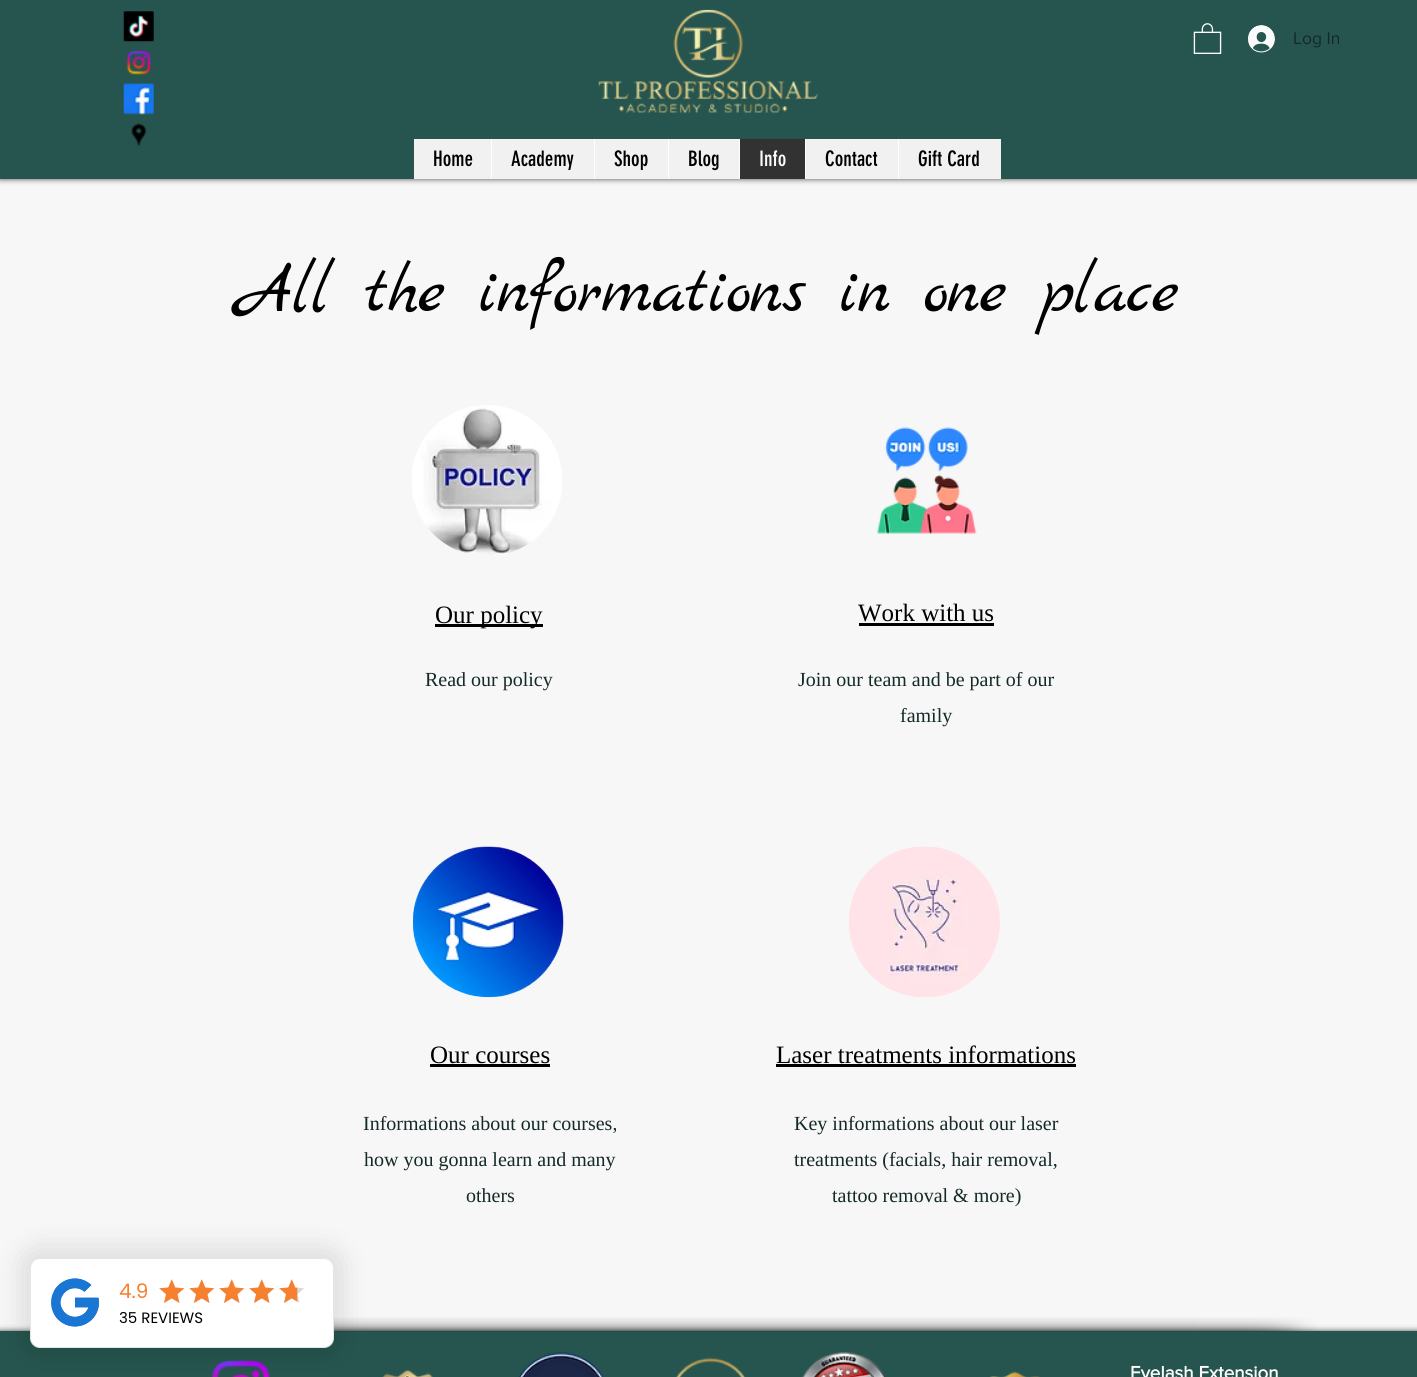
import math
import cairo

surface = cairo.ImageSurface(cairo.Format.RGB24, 1417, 1377)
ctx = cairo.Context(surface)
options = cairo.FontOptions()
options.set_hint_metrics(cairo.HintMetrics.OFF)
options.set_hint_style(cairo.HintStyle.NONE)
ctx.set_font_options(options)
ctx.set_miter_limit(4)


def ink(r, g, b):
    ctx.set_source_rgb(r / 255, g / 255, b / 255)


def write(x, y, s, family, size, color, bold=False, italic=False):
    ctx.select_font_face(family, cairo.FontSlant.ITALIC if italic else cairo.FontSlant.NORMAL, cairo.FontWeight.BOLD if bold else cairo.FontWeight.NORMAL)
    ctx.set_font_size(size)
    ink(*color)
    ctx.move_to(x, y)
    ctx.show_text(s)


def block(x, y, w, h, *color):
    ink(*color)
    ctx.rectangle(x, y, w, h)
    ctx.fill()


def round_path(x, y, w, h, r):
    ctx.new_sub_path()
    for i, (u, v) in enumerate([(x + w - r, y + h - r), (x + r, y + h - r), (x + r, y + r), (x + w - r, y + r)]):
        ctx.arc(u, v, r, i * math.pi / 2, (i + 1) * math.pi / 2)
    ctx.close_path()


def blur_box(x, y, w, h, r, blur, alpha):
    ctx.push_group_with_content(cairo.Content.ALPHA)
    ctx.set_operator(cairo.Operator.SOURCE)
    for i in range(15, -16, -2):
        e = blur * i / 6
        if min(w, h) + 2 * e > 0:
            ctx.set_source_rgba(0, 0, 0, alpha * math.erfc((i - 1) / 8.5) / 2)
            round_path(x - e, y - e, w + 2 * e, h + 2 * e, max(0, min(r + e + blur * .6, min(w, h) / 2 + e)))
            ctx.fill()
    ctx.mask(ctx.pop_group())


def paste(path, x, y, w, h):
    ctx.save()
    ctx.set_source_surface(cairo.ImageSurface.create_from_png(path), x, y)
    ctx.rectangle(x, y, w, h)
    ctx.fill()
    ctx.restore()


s1 = dict(family="Poppins", size=20, color=(247, 128, 47))
s2 = dict(family="Poppins", size=15, color=(0, 0, 0))
s3 = dict(family="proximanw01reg", size=17.5, color=(19, 42, 40))
s4 = dict(family="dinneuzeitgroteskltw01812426", size=21, color=(0, 0, 0))
s5 = dict(family="dinneuzeitgroteskltw01812426", size=21, color=(251, 251, 251))
s6 = dict(family="Marck Script", size=70, color=(0, 0, 0))
s7 = dict(family="Liberation Serif", size=25, color=(0, 0, 0))
s8 = dict(family="Liberation Serif", size=20, color=(19, 42, 40))
s9 = dict(family="proximanw01reg", size=18.75, color=(251, 251, 251), bold=True)

ink(247, 247, 247)
ctx.paint()
ink(0, 0, 0)
blur_box(0, 1331, 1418, 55, 0, 3, 0.7)
block(0, 1331, 1417, 46, 38, 85, 79)
paste("pic16.png", 334, 1317, 863, 15)
paste("pic18.png", 211, 1360, 59, 17)
paste("pic19.png", 382, 1352, 658, 25)
ink(0, 0, 0)
blur_box(23, 1250, 318, 105, 15, 15, 0.12)
ink(255, 255, 255)
round_path(30.5, 1258.5, 303, 89, 9.5)
ctx.fill_preserve()
ink(229, 229, 229)
ctx.set_line_width(1)
ctx.stroke()
paste("pic1.png", 51, 1278, 48, 49)
write(119, 1298, "4.9", **s1)
paste("pic2.png", 159, 1279, 25, 24)
paste("pic3.png", 159, 1279, 26, 24)
paste("pic2.png", 189, 1279, 25, 24)
paste("pic3.png", 189, 1279, 26, 24)
paste("pic2.png", 219, 1279, 25, 24)
paste("pic3.png", 219, 1279, 26, 24)
paste("pic2.png", 249, 1279, 25, 24)
paste("pic3.png", 249, 1279, 26, 24)
paste("pic2.png", 279, 1279, 25, 24)
paste("pic4.png", 279, 1279, 19, 24)
write(119, 1323, "35 REVIEWS", **s2)
ink(0, 0, 0)
blur_box(0, 0, 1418, 179, 0, 3, 0.7)
block(0, 0, 1417, 179, 38, 85, 79)
paste("pic5.png", 123, 11, 31, 31)
paste("pic6.png", 126, 50, 25, 25)
paste("pic7.png", 123, 83, 31, 32)
paste("pic8.png", 131, 123, 16, 23)
paste("pic9.png", 598, 9, 220, 104)
paste("pic10.png", 1193, 23, 29, 31)
paste("pic11.png", 1248, 25, 27, 28)
write(1293, 44, "Log In", **s3)
block(414, 139, 587, 40, 241, 241, 241)
write(433, 166, "Home", **s4)
block(491, 139, 1, 40, 255, 255, 255)
write(511, 166, "Academy", **s4)
block(594, 139, 1, 40, 255, 255, 255)
write(614, 166, "Shop", **s4)
block(668, 139, 1, 40, 255, 255, 255)
write(688, 166, "Blog", **s4)
block(740, 139, 65, 40, 50, 50, 50)
block(739, 139, 1, 40, 255, 255, 255)
write(759, 166, "Info", **s5)
block(805, 139, 1, 40, 255, 255, 255)
write(825, 166, "Contact", **s4)
block(898, 139, 1, 40, 255, 255, 255)
write(918, 166, "Gift Card", **s4)
write(238, 311, "All the informations in one place", **s6)
paste("pic12.png", 412, 405, 150, 150)
paste("pic13.png", 877, 427, 100, 107)
block(435, 624, 108, 3, 0, 0, 0)
write(435, 623, "Our policy", **s7)
write(858, 621, "Work with us", **s7)
block(859, 623, 135, 3, 0, 0, 0)
write(425, 686, "Read our policy", **s8)
write(798, 686, "Join our team and be part of our", **s8)
write(900, 722, "family", **s8)
paste("pic14.png", 413, 846, 151, 152)
paste("pic15.png", 849, 846, 151, 151)
write(430, 1063, "Our courses", **s7)
block(430, 1064, 120, 3, 0, 0, 0)
write(776, 1063, "Laser treatments informations", **s7)
block(776, 1064, 300, 3, 0, 0, 0)
write(363, 1130, "Informations about our courses,", **s8)
write(364, 1166, "how you gonna learn and many", **s8)
write(466, 1202, "others", **s8)
write(794, 1130, "Key informations about our laser", **s8)
write(794, 1166, "treatments (facials, hair removal,", **s8)
write(832, 1202, "tattoo removal & more)", **s8)
paste("pic17.png", 1196, 1317, 121, 15)
write(1130, 1379, "Eyelash Extension", **s9)
surface.write_to_png("screenshot.png")
